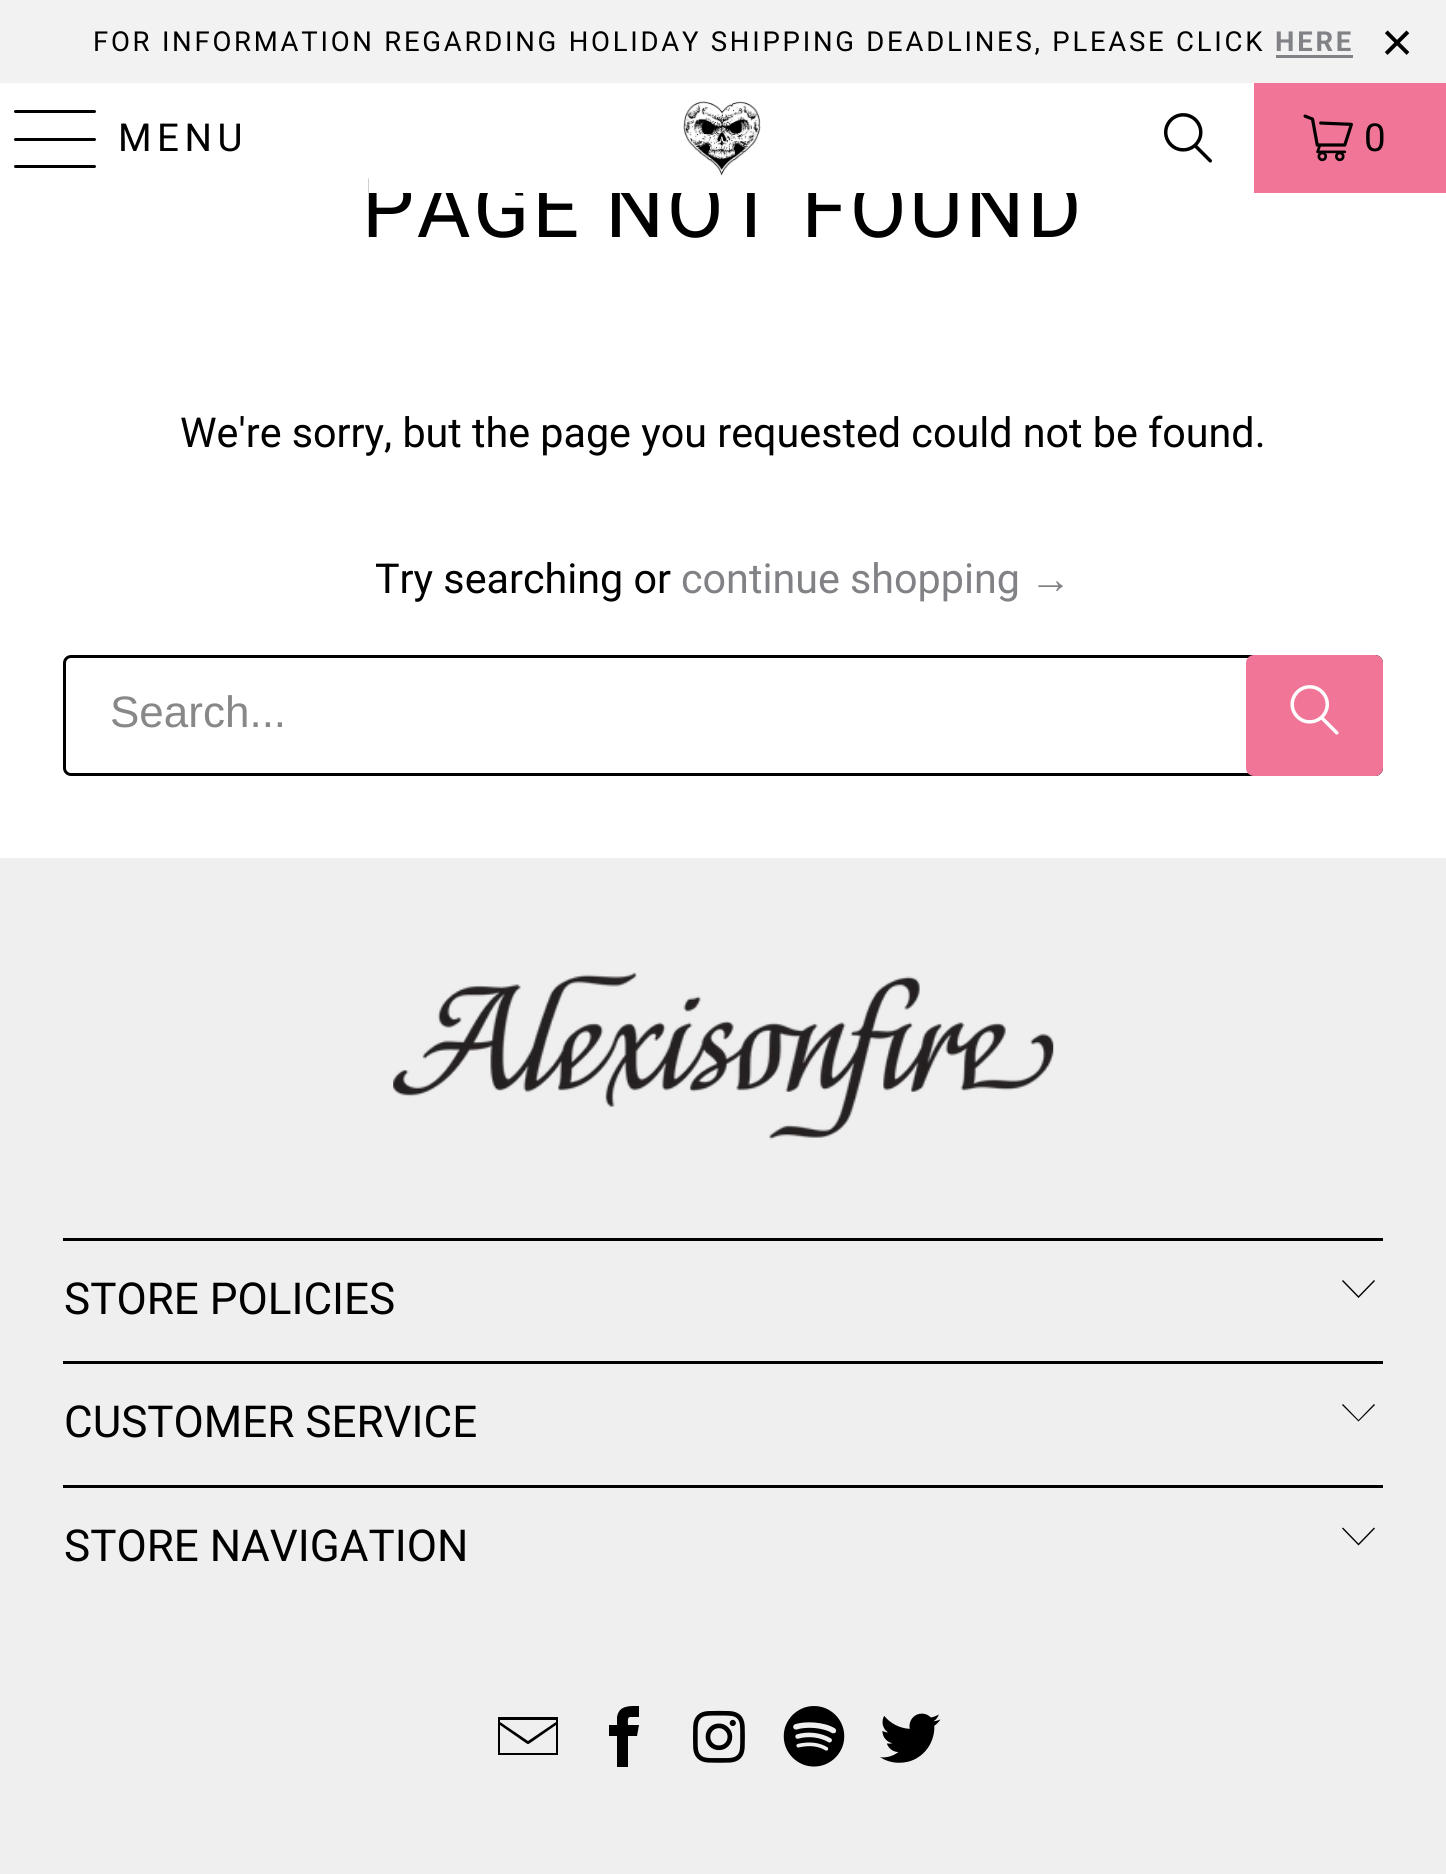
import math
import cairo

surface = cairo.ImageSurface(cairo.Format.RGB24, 1446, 1874)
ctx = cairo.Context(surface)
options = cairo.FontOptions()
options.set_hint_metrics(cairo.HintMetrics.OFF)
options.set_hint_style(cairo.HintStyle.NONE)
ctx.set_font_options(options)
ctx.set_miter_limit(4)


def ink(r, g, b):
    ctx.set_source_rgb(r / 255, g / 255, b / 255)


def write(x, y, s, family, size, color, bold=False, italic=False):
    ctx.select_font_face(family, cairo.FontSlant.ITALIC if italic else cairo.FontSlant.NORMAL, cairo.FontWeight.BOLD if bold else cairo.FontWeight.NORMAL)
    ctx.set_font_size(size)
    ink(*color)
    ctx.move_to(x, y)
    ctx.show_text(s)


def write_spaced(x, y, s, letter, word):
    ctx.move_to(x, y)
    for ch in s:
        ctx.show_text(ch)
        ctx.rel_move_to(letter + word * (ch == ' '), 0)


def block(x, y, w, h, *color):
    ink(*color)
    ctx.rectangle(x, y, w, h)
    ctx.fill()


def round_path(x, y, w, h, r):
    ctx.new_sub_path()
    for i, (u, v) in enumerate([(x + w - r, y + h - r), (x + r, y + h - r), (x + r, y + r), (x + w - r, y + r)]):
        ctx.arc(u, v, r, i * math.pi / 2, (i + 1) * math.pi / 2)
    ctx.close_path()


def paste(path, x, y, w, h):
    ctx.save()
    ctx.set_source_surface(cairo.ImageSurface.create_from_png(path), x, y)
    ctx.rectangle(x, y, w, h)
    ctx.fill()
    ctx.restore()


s1 = dict(family="Roboto", size=41.25, color=(0, 0, 0))
s2 = dict(family="Roboto", size=41.25, color=(128, 130, 133))
s3 = dict(family="Liberation Sans", size=41.25, color=(128, 130, 133))
s4 = dict(family="Liberation Sans", size=44, color=(136, 136, 136))
s5 = dict(family="Roboto", size=44, color=(0, 0, 0))

ink(255, 255, 255)
ctx.paint()
block(0, 0, 1446, 83, 242, 242, 242)
ctx.select_font_face("Roboto")
ctx.set_font_size(27.5)
ink(0, 0, 0)
write_spaced(93, 51, "FOR INFORMATION REGARDING HOLIDAY SHIPPING DEADLINES, PLEASE CLICK", 2.75, 0)
ctx.select_font_face("Roboto", cairo.FontSlant.NORMAL, cairo.FontWeight.BOLD)
ink(128, 130, 133)
write_spaced(1275, 51, "HERE", 2.75, 0)
block(1276, 55, 77, 3, 128, 130, 133)
ctx.select_font_face("Liberation Sans")
ctx.set_font_size(55)
ink(0, 0, 0)
write_spaced(1381, 61, "×", 2.75, 0)
ctx.select_font_face("Roboto")
ctx.set_font_size(82.5)
write_spaced(362, 237, "PAGE NOT FOUND", 2.75, 0)
block(369, 177, 706, 16, 255, 255, 255)
ink(0, 0, 0)
round_path(14, 110, 82, 3, 1.5)
ctx.fill()
round_path(14, 138, 82, 3, 1.5)
ctx.fill()
round_path(14, 165, 82, 3, 1.5)
ctx.fill()
ctx.set_font_size(38.5)
write_spaced(118, 151, "MENU", 5.5, 0)
paste("pic1.png", 683, 101, 78, 75)
paste("pic2.png", 1164, 113, 48, 50)
block(1254, 83, 192, 110, 240, 117, 151)
paste("pic3.png", 1303, 114, 50, 48)
ink(0, 0, 0)
write_spaced(1364, 151, "0", 5.5, 0)
write(180, 447, "We're sorry, but the page you requested could not be found.", **s1)
write(375, 593, "Try searching or", **s1)
write(681, 593, "continue shopping", **s2)
write(1030, 593, "→", **s3)
round_path(64.5, 656.5, 1317, 118, 6.5)
ink(0, 0, 0)
ctx.set_line_width(3)
ctx.stroke()
write(110, 727, "Search...", **s4)
ink(240, 117, 151)
round_path(1246, 655, 137, 121, 8)
ctx.fill()
paste("pic4.png", 1290, 685, 49, 50)
block(0, 858, 1446, 1016, 239, 239, 239)
paste("pic5.png", 393, 972, 661, 168)
block(63, 1238, 1320, 3, 0, 0, 0)
write(64, 1314, "STORE POLICIES", **s5)
ctx.new_path()
ctx.move_to(1358.5, 1298)
ctx.line_to(1342, 1281)
ctx.line_to(1343, 1280)
ctx.line_to(1358.5, 1296)
ctx.line_to(1374, 1280)
ctx.line_to(1375, 1281)
ctx.close_path()
ctx.fill()
block(63, 1361, 1320, 3, 0, 0, 0)
write(64, 1437, "CUSTOMER SERVICE", **s5)
ctx.new_path()
ctx.move_to(1358.5, 1421.5)
ctx.line_to(1342, 1405)
ctx.line_to(1343, 1404)
ctx.line_to(1358.5, 1420)
ctx.line_to(1374, 1404)
ctx.line_to(1375, 1405)
ctx.close_path()
ctx.fill()
block(63, 1485, 1320, 3, 0, 0, 0)
write(64, 1561, "STORE NAVIGATION", **s5)
ctx.new_path()
ctx.move_to(1358.5, 1545.5)
ctx.line_to(1342, 1528.5)
ctx.line_to(1343, 1527.5)
ctx.line_to(1358.5, 1543.5)
ctx.line_to(1374, 1527.5)
ctx.line_to(1375, 1528.5)
ctx.close_path()
ctx.fill()
ctx.new_path()
ctx.move_to(498, 1717)
ctx.line_to(498, 1755)
ctx.line_to(558, 1755)
ctx.line_to(558, 1717)
ctx.close_path()
ctx.move_to(556, 1720)
ctx.line_to(556, 1722)
ctx.line_to(528, 1741)
ctx.line_to(500, 1722)
ctx.line_to(500, 1720)
ctx.close_path()
ctx.move_to(500, 1753)
ctx.line_to(500, 1725)
ctx.line_to(523, 1741)
ctx.curve_to(529, 1745, 527, 1745, 533, 1741)
ctx.line_to(556, 1725)
ctx.line_to(556, 1753)
ctx.close_path()
ctx.fill()
ctx.new_path()
ctx.move_to(630, 1717)
ctx.line_to(639, 1717)
ctx.line_to(639, 1706)
ctx.curve_to(630, 1706, 619, 1705, 617, 1717)
ctx.line_to(617, 1725)
ctx.line_to(609, 1725)
ctx.line_to(609, 1736)
ctx.line_to(617, 1736)
ctx.line_to(617, 1767)
ctx.line_to(628, 1767)
ctx.line_to(628, 1736)
ctx.line_to(637, 1736)
ctx.line_to(639, 1725)
ctx.line_to(628, 1725)
ctx.curve_to(628, 1723, 627, 1717, 630, 1717)
ctx.close_path()
ctx.fill()
paste("pic6.png", 693, 1710, 52, 53)
paste("pic7.png", 783, 1706, 62, 61)
paste("pic8.png", 880, 1713, 61, 50)
surface.write_to_png("screenshot.png")
